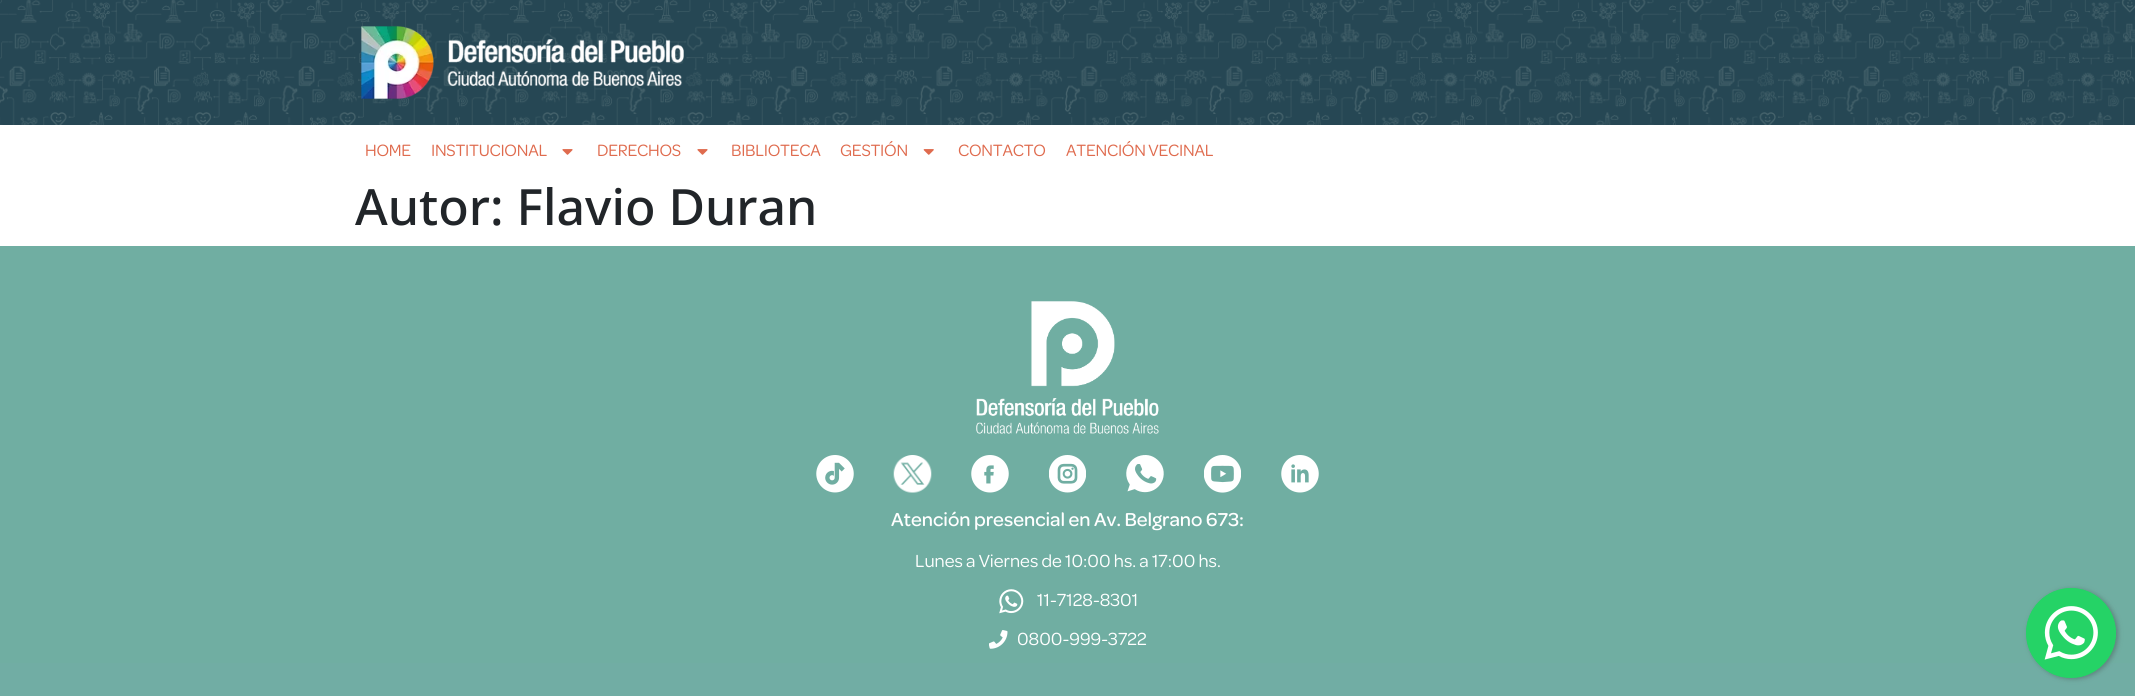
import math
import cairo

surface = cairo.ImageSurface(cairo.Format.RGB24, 2135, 696)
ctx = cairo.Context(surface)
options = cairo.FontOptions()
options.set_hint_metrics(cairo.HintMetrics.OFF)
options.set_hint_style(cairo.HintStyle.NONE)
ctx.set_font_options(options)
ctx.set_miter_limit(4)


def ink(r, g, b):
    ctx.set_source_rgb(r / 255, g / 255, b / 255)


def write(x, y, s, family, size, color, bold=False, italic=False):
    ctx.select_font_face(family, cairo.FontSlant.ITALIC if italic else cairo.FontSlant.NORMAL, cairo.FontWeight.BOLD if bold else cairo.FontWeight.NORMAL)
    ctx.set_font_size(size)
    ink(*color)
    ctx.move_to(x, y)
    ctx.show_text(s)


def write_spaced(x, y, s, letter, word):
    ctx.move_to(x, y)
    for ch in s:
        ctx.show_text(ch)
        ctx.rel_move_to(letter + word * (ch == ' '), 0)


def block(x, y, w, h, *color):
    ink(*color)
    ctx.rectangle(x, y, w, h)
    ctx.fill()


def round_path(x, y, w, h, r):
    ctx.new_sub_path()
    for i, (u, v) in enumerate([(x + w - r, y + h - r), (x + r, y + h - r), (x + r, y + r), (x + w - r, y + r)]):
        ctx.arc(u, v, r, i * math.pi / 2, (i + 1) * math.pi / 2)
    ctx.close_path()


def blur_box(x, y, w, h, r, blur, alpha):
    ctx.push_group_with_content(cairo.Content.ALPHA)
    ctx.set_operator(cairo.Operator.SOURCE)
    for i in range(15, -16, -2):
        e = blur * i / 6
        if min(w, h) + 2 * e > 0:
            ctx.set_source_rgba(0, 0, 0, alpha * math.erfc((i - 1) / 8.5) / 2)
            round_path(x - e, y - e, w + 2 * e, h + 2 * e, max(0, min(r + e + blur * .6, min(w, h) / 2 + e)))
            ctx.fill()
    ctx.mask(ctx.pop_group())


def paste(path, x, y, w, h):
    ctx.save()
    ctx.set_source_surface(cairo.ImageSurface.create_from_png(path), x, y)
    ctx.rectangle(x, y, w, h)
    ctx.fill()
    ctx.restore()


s1 = dict(family="Noto Sans Medium", size=50, color=(33, 37, 41))
s2 = dict(family="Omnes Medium", size=20, color=(255, 255, 255))
s3 = dict(family="Omnes", size=18.75, color=(255, 255, 255))

ink(255, 255, 255)
ctx.paint()
block(0, 0, 2135, 125, 38, 71, 84)
paste("pic1.png", 0, 0, 2135, 125)
paste("pic2.png", 361, 26, 323, 73)
ctx.select_font_face("Omnes")
ctx.set_font_size(17.5)
ink(223, 107, 78)
write_spaced(365, 156, "HOME", -0.25, 0)
write_spaced(431, 156, "INSTITUCIONAL", -0.25, 0)
paste("pic3.png", 562, 149, 11, 6)
write_spaced(597, 156, "DERECHOS", -0.25, 0)
paste("pic3.png", 697, 149, 11, 6)
write_spaced(731, 156, "BIBLIOTECA", -0.25, 0)
write_spaced(840, 156, "GESTIÓN", -0.25, 0)
paste("pic4.png", 923, 149, 11, 6)
write_spaced(958, 156, "CONTACTO", -0.25, 0)
write_spaced(1066, 156, "ATENCIÓN VECINAL", -0.25, 0)
write(355, 225, "Autor: Flavio Duran", **s1)
block(0, 246, 2135, 417, 112, 174, 162)
paste("pic5.png", 976, 301, 183, 133)
paste("pic6.png", 816, 455, 38, 38)
paste("pic7.png", 893, 455, 39, 38)
paste("pic8.png", 971, 455, 38, 38)
paste("pic9.png", 1049, 455, 37, 38)
paste("pic10.png", 1126, 455, 38, 38)
paste("pic11.png", 1204, 455, 37, 38)
paste("pic12.png", 1281, 455, 38, 38)
write(891, 526, "Atención presencial en Av. Belgrano 673:", **s2)
write(915, 567, "Lunes a Viernes de 10:00 hs. a 17:00 hs.", **s3)
paste("pic13.png", 999, 589, 25, 25)
write(1037, 606, "11-7128-8301", **s3)
paste("pic14.png", 989, 630, 19, 19)
write(1017, 645, "0800-999-3722", **s3)
block(0, 663, 2135, 33, 113, 173, 164)
ink(60, 60, 60)
blur_box(2028, 589, 90, 90, 45, 2.5, 0.4)
ink(37, 211, 102)
ctx.arc(2071, 633, 45, 0, 2 * math.pi)
ctx.fill()
paste("pic15.png", 2026, 588, 90, 90)
surface.write_to_png("screenshot.png")
